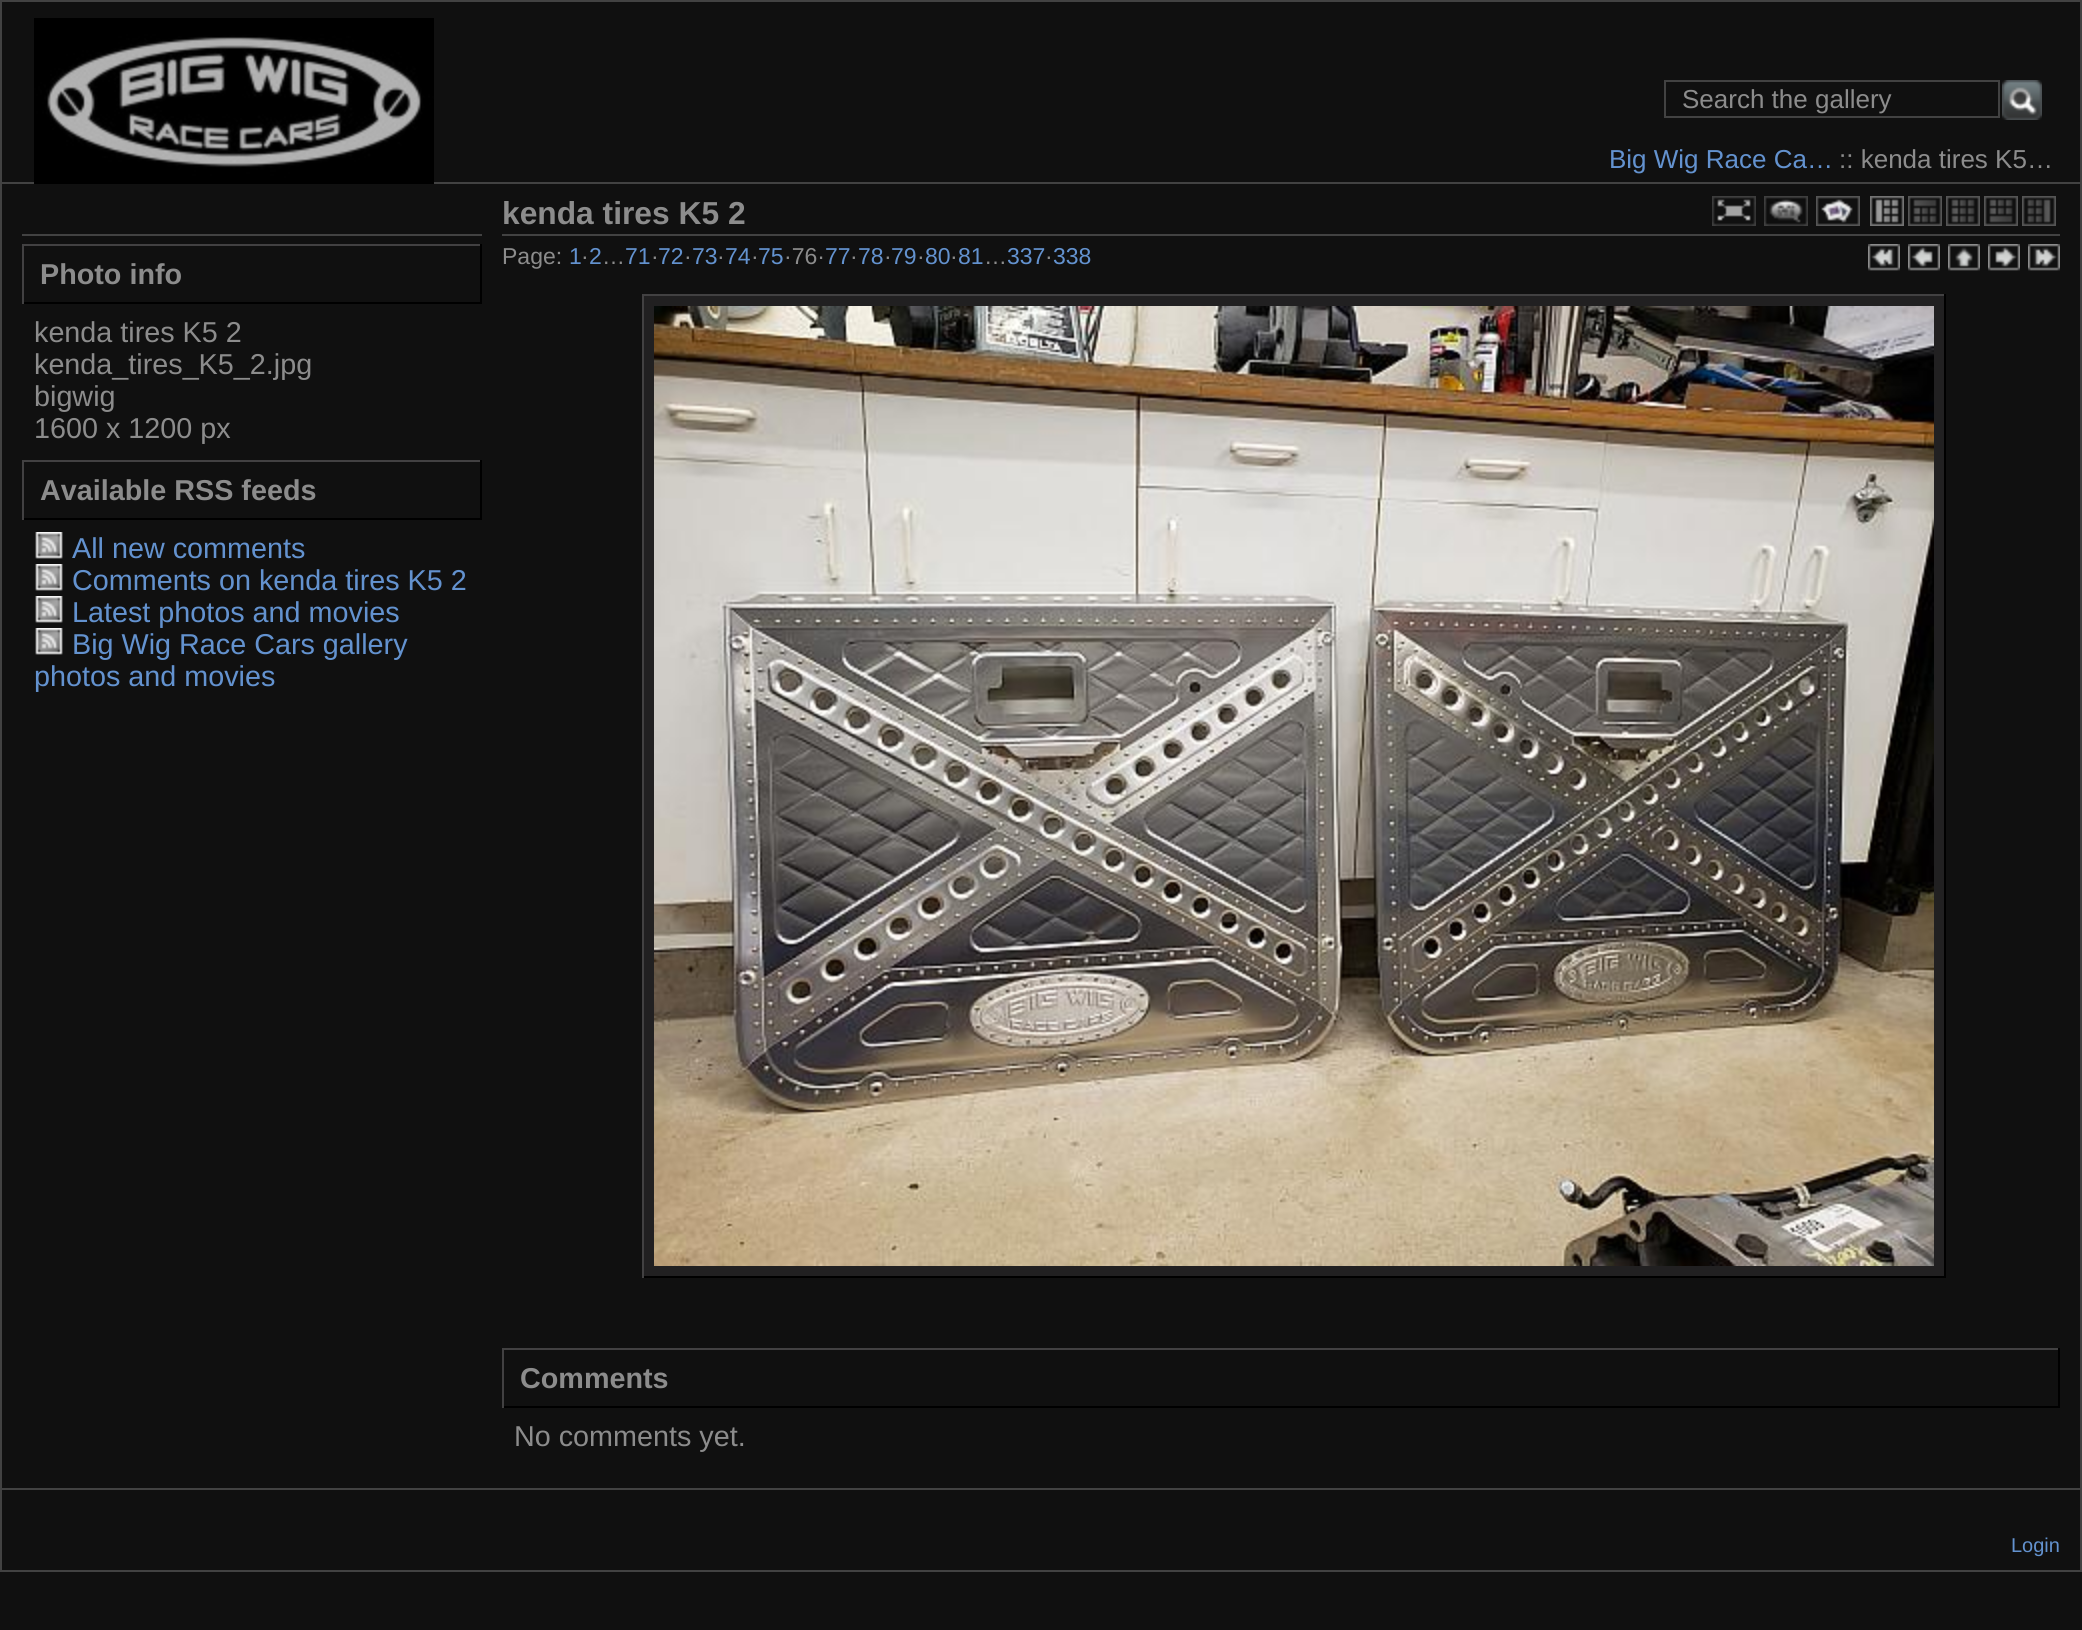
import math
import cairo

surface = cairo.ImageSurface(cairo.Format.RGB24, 2082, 1630)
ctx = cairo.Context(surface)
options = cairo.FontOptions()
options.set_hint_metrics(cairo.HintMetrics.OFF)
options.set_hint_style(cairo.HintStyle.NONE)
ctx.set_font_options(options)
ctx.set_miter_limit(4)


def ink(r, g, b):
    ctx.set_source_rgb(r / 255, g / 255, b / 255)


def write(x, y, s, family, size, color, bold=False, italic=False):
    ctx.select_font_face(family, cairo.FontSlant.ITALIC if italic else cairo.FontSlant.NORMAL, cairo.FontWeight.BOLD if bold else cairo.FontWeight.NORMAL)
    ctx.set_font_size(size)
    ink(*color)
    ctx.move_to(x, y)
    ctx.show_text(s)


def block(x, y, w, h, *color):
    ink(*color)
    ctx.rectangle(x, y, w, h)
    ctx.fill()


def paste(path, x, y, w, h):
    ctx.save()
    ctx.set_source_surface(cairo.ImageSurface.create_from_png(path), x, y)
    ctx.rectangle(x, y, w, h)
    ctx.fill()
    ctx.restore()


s1 = dict(family="Liberation Sans", size=26, color=(140, 140, 140))
s2 = dict(family="Liberation Sans", size=26, color=(99, 146, 207))
s3 = dict(family="Liberation Sans", size=28.75, color=(140, 140, 140), bold=True)
s4 = dict(family="Liberation Sans", size=28.75, color=(140, 140, 140))
s5 = dict(family="Liberation Sans", size=28.75, color=(99, 146, 207))
s6 = dict(family="Liberation Sans", size=31.75, color=(140, 140, 140), bold=True)
s7 = dict(family="Liberation Sans", size=23, color=(140, 140, 140))
s8 = dict(family="Liberation Sans", size=23, color=(99, 146, 207))
s9 = dict(family="Liberation Sans", size=20, color=(99, 146, 207))

ink(16, 16, 16)
ctx.paint()
ctx.rectangle(1, 1, 2080, 182)
ink(66, 66, 66)
ctx.stroke()
paste("pic1.png", 34, 18, 400, 166)
ctx.rectangle(1665, 81, 334, 36)
ctx.stroke()
write(1682, 108, "Search the gallery", **s1)
paste("pic2.png", 2002, 80, 40, 40)
write(1609, 168, "Big Wig Race Ca…", **s2)
write(1839, 168, ":: kenda tires K5…", **s1)
block(2080, 184, 2, 1304, 66, 66, 66)
block(0, 184, 2, 1304, 66, 66, 66)
block(22, 234, 460, 2, 66, 66, 66)
block(22, 244, 460, 2, 66, 65, 66)
block(480, 244, 2, 60, 0, 0, 0)
block(22, 302, 460, 2, 0, 0, 0)
block(22, 244, 2, 60, 66, 65, 66)
write(40, 284, "Photo info", **s3)
write(34, 342, "kenda tires K5 2", **s4)
write(34, 374, "kenda_tires_K5_2.jpg", **s4)
write(34, 406, "bigwig", **s4)
write(34, 438, "1600 x 1200 px", **s4)
block(22, 460, 460, 2, 66, 65, 66)
block(480, 460, 2, 60, 0, 0, 0)
block(22, 518, 460, 2, 0, 0, 0)
block(22, 460, 2, 60, 66, 65, 66)
write(40, 500, "Available RSS feeds", **s3)
paste("pic3.png", 35, 532, 28, 27)
write(72, 558, "All new comments", **s5)
paste("pic3.png", 35, 564, 28, 27)
write(72, 590, "Comments on kenda tires K5 2", **s5)
paste("pic3.png", 35, 596, 28, 27)
write(72, 622, "Latest photos and movies", **s5)
paste("pic3.png", 35, 628, 28, 27)
write(72, 654, "Big Wig Race Cars gallery", **s5)
write(34, 686, "photos and movies", **s5)
block(502, 234, 1558, 2, 66, 66, 66)
write(502, 224, "kenda tires K5 2", **s6)
write(502, 264, "Page:", **s7)
write(569, 264, "1", **s8)
write(581, 264, "·", **s7)
write(589, 264, "2", **s8)
write(625, 264, "71", **s8)
write(651, 264, "·", **s7)
write(658, 264, "72", **s8)
write(684, 264, "·", **s7)
write(692, 264, "73", **s8)
write(717, 264, "·", **s7)
write(725, 264, "74", **s8)
write(751, 264, "·", **s7)
write(758, 264, "75", **s8)
write(784, 264, "·76·", **s7)
write(825, 264, "77", **s8)
write(850, 264, "·", **s7)
write(858, 264, "78", **s8)
write(884, 264, "·", **s7)
write(891, 264, "79", **s8)
write(917, 264, "·", **s7)
write(925, 264, "80", **s8)
write(950, 264, "·", **s7)
write(958, 264, "81", **s8)
write(1007, 264, "337", **s8)
write(1045, 264, "·", **s7)
write(1053, 264, "338", **s8)
write(602, 264, "…", **s7)
write(984, 264, "…", **s7)
paste("pic4.png", 1868, 244, 32, 27)
paste("pic5.png", 1908, 244, 32, 27)
paste("pic6.png", 1948, 244, 32, 27)
paste("pic7.png", 1988, 244, 32, 27)
paste("pic8.png", 2028, 244, 32, 27)
block(644, 296, 1300, 980, 33, 32, 33)
block(642, 294, 1304, 2, 66, 65, 66)
block(1944, 294, 2, 984, 0, 0, 0)
block(642, 1276, 1304, 2, 0, 0, 0)
block(642, 294, 2, 984, 66, 65, 66)
paste("pic9.png", 654, 306, 1280, 960)
block(502, 1348, 1558, 2, 66, 65, 66)
block(2058, 1348, 2, 60, 0, 0, 0)
block(502, 1406, 1558, 2, 0, 0, 0)
block(502, 1348, 2, 60, 66, 65, 66)
write(520, 1388, "Comments", **s3)
write(514, 1446, "No comments yet.", **s4)
paste("pic10.png", 1712, 196, 44, 30)
paste("pic11.png", 1764, 196, 44, 30)
paste("pic12.png", 1816, 196, 44, 30)
paste("pic13.png", 1870, 196, 34, 30)
paste("pic14.png", 1908, 196, 34, 30)
paste("pic15.png", 1946, 196, 34, 30)
paste("pic16.png", 1984, 196, 34, 30)
paste("pic17.png", 2022, 196, 34, 30)
ctx.rectangle(1, 1489, 2080, 82)
ink(66, 66, 66)
ctx.stroke()
write(2011, 1552, "Login", **s9)
surface.write_to_png("screenshot.png")
